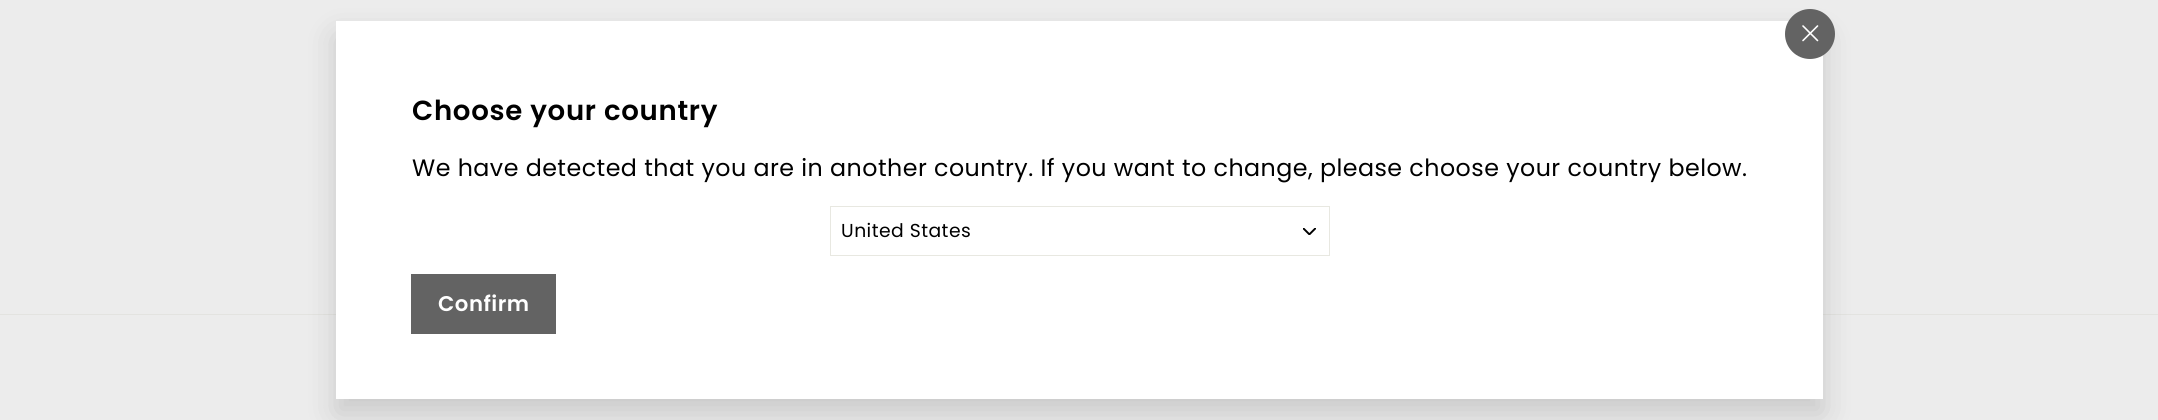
import math
import cairo

surface = cairo.ImageSurface(cairo.Format.RGB24, 2158, 420)
ctx = cairo.Context(surface)
options = cairo.FontOptions()
options.set_hint_metrics(cairo.HintMetrics.OFF)
options.set_hint_style(cairo.HintStyle.NONE)
ctx.set_font_options(options)
ctx.set_miter_limit(4)


def ink(r, g, b):
    ctx.set_source_rgb(r / 255, g / 255, b / 255)


def write_spaced(x, y, s, letter, word):
    ctx.move_to(x, y)
    for ch in s:
        ctx.show_text(ch)
        ctx.rel_move_to(letter + word * (ch == ' '), 0)


def block(x, y, w, h, *color):
    ink(*color)
    ctx.rectangle(x, y, w, h)
    ctx.fill()


def round_path(x, y, w, h, r):
    ctx.new_sub_path()
    for i, (u, v) in enumerate([(x + w - r, y + h - r), (x + r, y + h - r), (x + r, y + r), (x + w - r, y + r)]):
        ctx.arc(u, v, r, i * math.pi / 2, (i + 1) * math.pi / 2)
    ctx.close_path()


def blur_box(x, y, w, h, r, blur, alpha):
    ctx.push_group_with_content(cairo.Content.ALPHA)
    ctx.set_operator(cairo.Operator.SOURCE)
    for i in range(15, -16, -2):
        e = blur * i / 6
        if min(w, h) + 2 * e > 0:
            ctx.set_source_rgba(0, 0, 0, alpha * math.erfc((i - 1) / 8.5) / 2)
            round_path(x - e, y - e, w + 2 * e, h + 2 * e, max(0, min(r + e + blur * .6, min(w, h) / 2 + e)))
            ctx.fill()
    ctx.mask(ctx.pop_group())


def paste(path, x, y, w, h):
    ctx.save()
    ctx.set_source_surface(cairo.ImageSurface.create_from_png(path), x, y)
    ctx.rectangle(x, y, w, h)
    ctx.fill()
    ctx.restore()


ink(236, 236, 236)
ctx.paint()
block(0, 314, 2158, 1, 227, 227, 224)
ink(0, 0, 0)
blur_box(336, 36, 1487, 378, 0, 15.5, 0.15)
block(336, 21, 1487, 378, 255, 255, 255)
ink(99, 99, 99)
ctx.arc(1810, 34, 25, 0, 2 * math.pi)
ctx.fill()
ctx.new_path()
ctx.move_to(1803, 26)
ctx.line_to(1817.5, 40.5)
ctx.move_to(1817.5, 26)
ctx.line_to(1803, 40.5)
ink(255, 255, 255)
ctx.set_line_width(1.6)
ctx.set_line_cap(cairo.LineCap.ROUND)
ctx.set_line_join(cairo.LineJoin.ROUND)
ctx.stroke()
ctx.select_font_face("Poppins SemiBold")
ctx.set_font_size(27.6)
ink(0, 0, 0)
write_spaced(412, 120, "Choose your country", 0.7, 0)
ctx.select_font_face("Poppins")
ctx.set_font_size(23.75)
write_spaced(412, 176, "We have detected that you are in another country. If you want to change, please choose your country below.", 0.47, 0)
paste("pic1.png", 1303, 228, 13, 7)
ctx.rectangle(830.5, 206.5, 499, 49)
ink(232, 232, 225)
ctx.set_line_width(1)
ctx.set_line_cap(cairo.LineCap.BUTT)
ctx.set_line_join(cairo.LineJoin.MITER)
ctx.stroke()
ctx.set_font_size(18.75)
ink(0, 0, 0)
write_spaced(841, 237, "United States", 0.47, 0)
block(411, 274, 145, 60, 99, 99, 99)
ctx.select_font_face("Poppins SemiBold")
ctx.set_font_size(21.25)
ink(255, 255, 255)
write_spaced(438, 311, "Confirm", 0.5, 0)
surface.write_to_png("screenshot.png")
